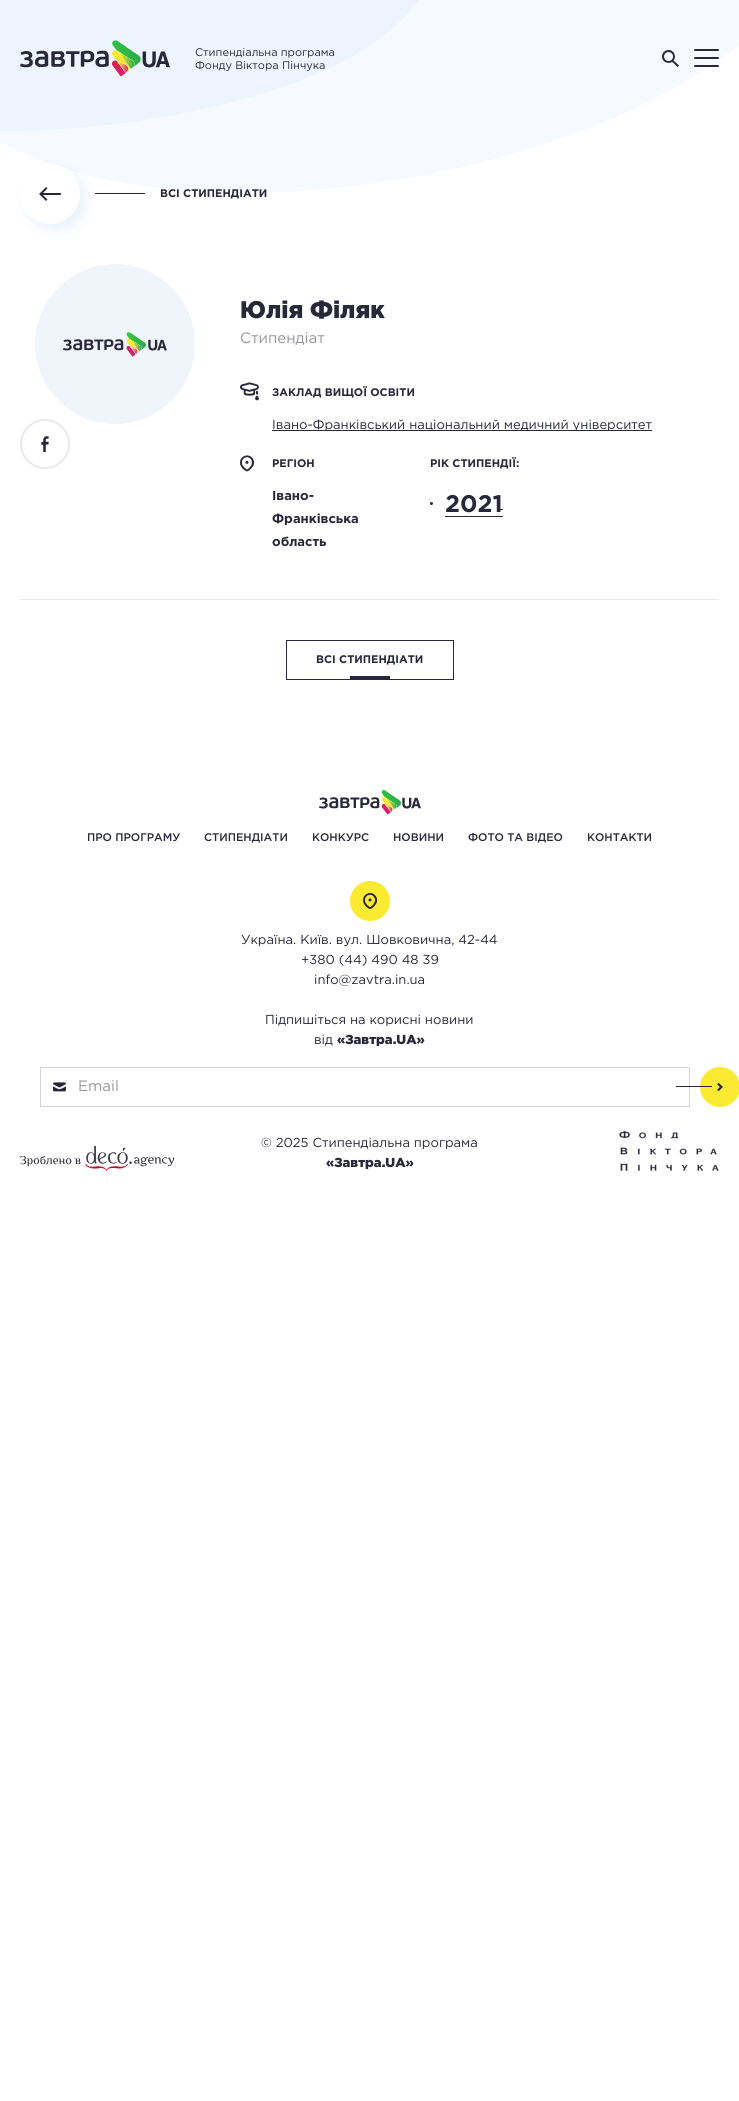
import math
import cairo

surface = cairo.ImageSurface(cairo.Format.RGB24, 739, 2101)
ctx = cairo.Context(surface)
options = cairo.FontOptions()
options.set_hint_metrics(cairo.HintMetrics.OFF)
options.set_hint_style(cairo.HintStyle.NONE)
ctx.set_font_options(options)
ctx.set_miter_limit(4)


def ink(r, g, b):
    ctx.set_source_rgb(r / 255, g / 255, b / 255)


def write(x, y, s, family, size, color, bold=False, italic=False):
    ctx.select_font_face(family, cairo.FontSlant.ITALIC if italic else cairo.FontSlant.NORMAL, cairo.FontWeight.BOLD if bold else cairo.FontWeight.NORMAL)
    ctx.set_font_size(size)
    ink(*color)
    ctx.move_to(x, y)
    ctx.show_text(s)


def block(x, y, w, h, *color):
    ink(*color)
    ctx.rectangle(x, y, w, h)
    ctx.fill()


def round_path(x, y, w, h, r):
    ctx.new_sub_path()
    for i, (u, v) in enumerate([(x + w - r, y + h - r), (x + r, y + h - r), (x + r, y + r), (x + w - r, y + r)]):
        ctx.arc(u, v, r, i * math.pi / 2, (i + 1) * math.pi / 2)
    ctx.close_path()


def blur_box(x, y, w, h, r, blur, alpha):
    ctx.push_group_with_content(cairo.Content.ALPHA)
    ctx.set_operator(cairo.Operator.SOURCE)
    for i in range(15, -16, -2):
        e = blur * i / 6
        if min(w, h) + 2 * e > 0:
            ctx.set_source_rgba(0, 0, 0, alpha * math.erfc((i - 1) / 8.5) / 2)
            round_path(x - e, y - e, w + 2 * e, h + 2 * e, max(0, min(r + e + blur * .6, min(w, h) / 2 + e)))
            ctx.fill()
    ctx.mask(ctx.pop_group())


def paste(path, x, y, w, h):
    ctx.save()
    ctx.set_source_surface(cairo.ImageSurface.create_from_png(path), x, y)
    ctx.rectangle(x, y, w, h)
    ctx.fill()
    ctx.restore()


s1 = dict(family="Gotham", size=11, color=(40, 40, 58))
s2 = dict(family="Gotham", size=11, color=(40, 40, 58), bold=True)
s3 = dict(family="Gotham Black", size=24, color=(40, 40, 58))
s4 = dict(family="Gotham", size=15, color=(148, 148, 157))
s5 = dict(family="Gotham", size=13, color=(40, 40, 58))
s6 = dict(family="Gotham", size=13, color=(40, 40, 58), bold=True)
s7 = dict(family="Gotham", size=24, color=(40, 40, 58), bold=True)
s8 = dict(family="Gotham Medium", size=11, color=(40, 40, 58))
s9 = dict(family="Gotham Black", size=13, color=(40, 40, 58))

ink(255, 255, 255)
ctx.paint()
ink(246, 250, 255)
ctx.new_path()
ctx.move_to(9, 146)
ctx.curve_to(251, 273, 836, 128, 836, -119)
ctx.curve_to(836, -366, 288, -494, 26, -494)
ctx.curve_to(-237, -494, -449, -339, -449, -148)
ctx.curve_to(-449, 43, -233, 18, 9, 146)
ctx.close_path()
ctx.fill()
ink(237, 244, 254)
ctx.new_path()
ctx.move_to(5, 131)
ctx.curve_to(168, 131, 435, 76, 435, -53)
ctx.curve_to(435, -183, 310, -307, 146, -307)
ctx.curve_to(-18, -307, -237, -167, -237, -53)
ctx.curve_to(-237, 60, -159, 131, 5, 131)
ctx.close_path()
ctx.fill()
paste("pic1.png", 20, 40, 150, 37)
write(195, 56, "Стипендіальна програма", **s1)
write(195, 69, "Фонду Віктора Пінчука", **s1)
paste("pic2.png", 662, 50, 17, 17)
round_path(694, 49, 25, 2, 1)
ctx.fill()
round_path(694, 57, 25, 2, 1)
ctx.fill()
round_path(694, 65, 25, 2, 1)
ctx.fill()
ink(38, 112, 198)
blur_box(26, 170, 60, 60, 30, 6, 0.1)
ink(255, 255, 255)
ctx.arc(50, 194, 30, 0, 2 * math.pi)
ctx.fill()
paste("pic3.png", 39, 187, 22, 14)
block(95, 193, 50, 1, 40, 40, 58)
write(160, 197, "ВСІ СТИПЕНДІАТИ", **s2)
block(20, 599, 699, 1, 233, 233, 235)
paste("pic4.png", 35, 264, 160, 160)
ctx.arc(45, 444, 24, 0, 2 * math.pi)
ctx.stroke()
paste("pic5.png", 41, 436, 8, 16)
write(240, 318, "Юлія Філяк", **s3)
write(240, 343, "Стипендіат", **s4)
paste("pic6.png", 240, 382, 19, 19)
write(272, 396, "ЗАКЛАД ВИЩОЇ ОСВІТИ", **s2)
block(272, 430, 380, 1, 40, 40, 58)
write(272, 429, "Івано-Франківський національний медичний університет", **s5)
paste("pic7.png", 240, 455, 15, 17)
write(272, 467, "РЕГІОН", **s2)
write(272, 500, "Івано-", **s6)
write(272, 523, "Франківська", **s6)
write(272, 546, "область", **s6)
write(430, 467, "РІК СТИПЕНДІЇ:", **s2)
ctx.new_path()
ctx.arc(431.5, 503.5, 1.5, 0, 2 * math.pi)
ctx.fill()
block(497, 509, 6, 1, 40, 40, 58)
write(445, 512, "2021", **s7)
block(445, 516, 58, 1, 40, 40, 58)
ctx.rectangle(286.5, 640.5, 167, 39)
ctx.set_line_width(1)
ctx.stroke()
write(316, 663, "ВСІ СТИПЕНДІАТИ", **s2)
block(350, 676, 40, 3, 40, 40, 58)
paste("pic8.png", 319, 790, 102, 25)
write(87, 841, "ПРО ПРОГРАМУ", **s8)
write(204, 841, "СТИПЕНДІАТИ", **s8)
write(312, 841, "КОНКУРС", **s8)
write(393, 841, "НОВИНИ", **s8)
write(468, 841, "ФОТО ТА ВІДЕО", **s8)
write(587, 841, "КОНТАКТИ", **s8)
ink(250, 234, 50)
ctx.new_path()
ctx.arc(370, 901, 20, 0, 2 * math.pi)
ctx.fill()
paste("pic9.png", 363, 893, 15, 16)
write(241, 944, "Україна. Київ. вул. Шовковична, 42-44", **s5)
write(301, 964, "+380 (44) 490 48 39", **s5)
write(314, 984, "info@zavtra.in.ua", **s5)
write(265, 1024, "Підпишіться на корисні новини", **s5)
write(314, 1044, "від", **s5)
write(337, 1044, "«Завтра.UA»", **s9)
ctx.rectangle(40.5, 1067.5, 649, 39)
ink(212, 212, 216)
ctx.stroke()
paste("pic10.png", 53, 1082, 13, 10)
write(78, 1091, "Email", **s4)
ink(250, 234, 50)
ctx.new_path()
ctx.arc(720, 1087, 20, 0, 2 * math.pi)
ctx.fill()
paste("pic12.png", 717, 1083, 6, 8)
paste("pic11.png", 717, 1083, 6, 8)
block(676, 1086, 36, 1, 40, 40, 58)
paste("pic13.png", 20, 1146, 155, 25)
write(261, 1147, "© 2025 Стипендіальна програма", **s5)
write(326, 1167, "«Завтра.UA»", **s9)
paste("pic14.png", 619, 1131, 100, 40)
surface.write_to_png("screenshot.png")
